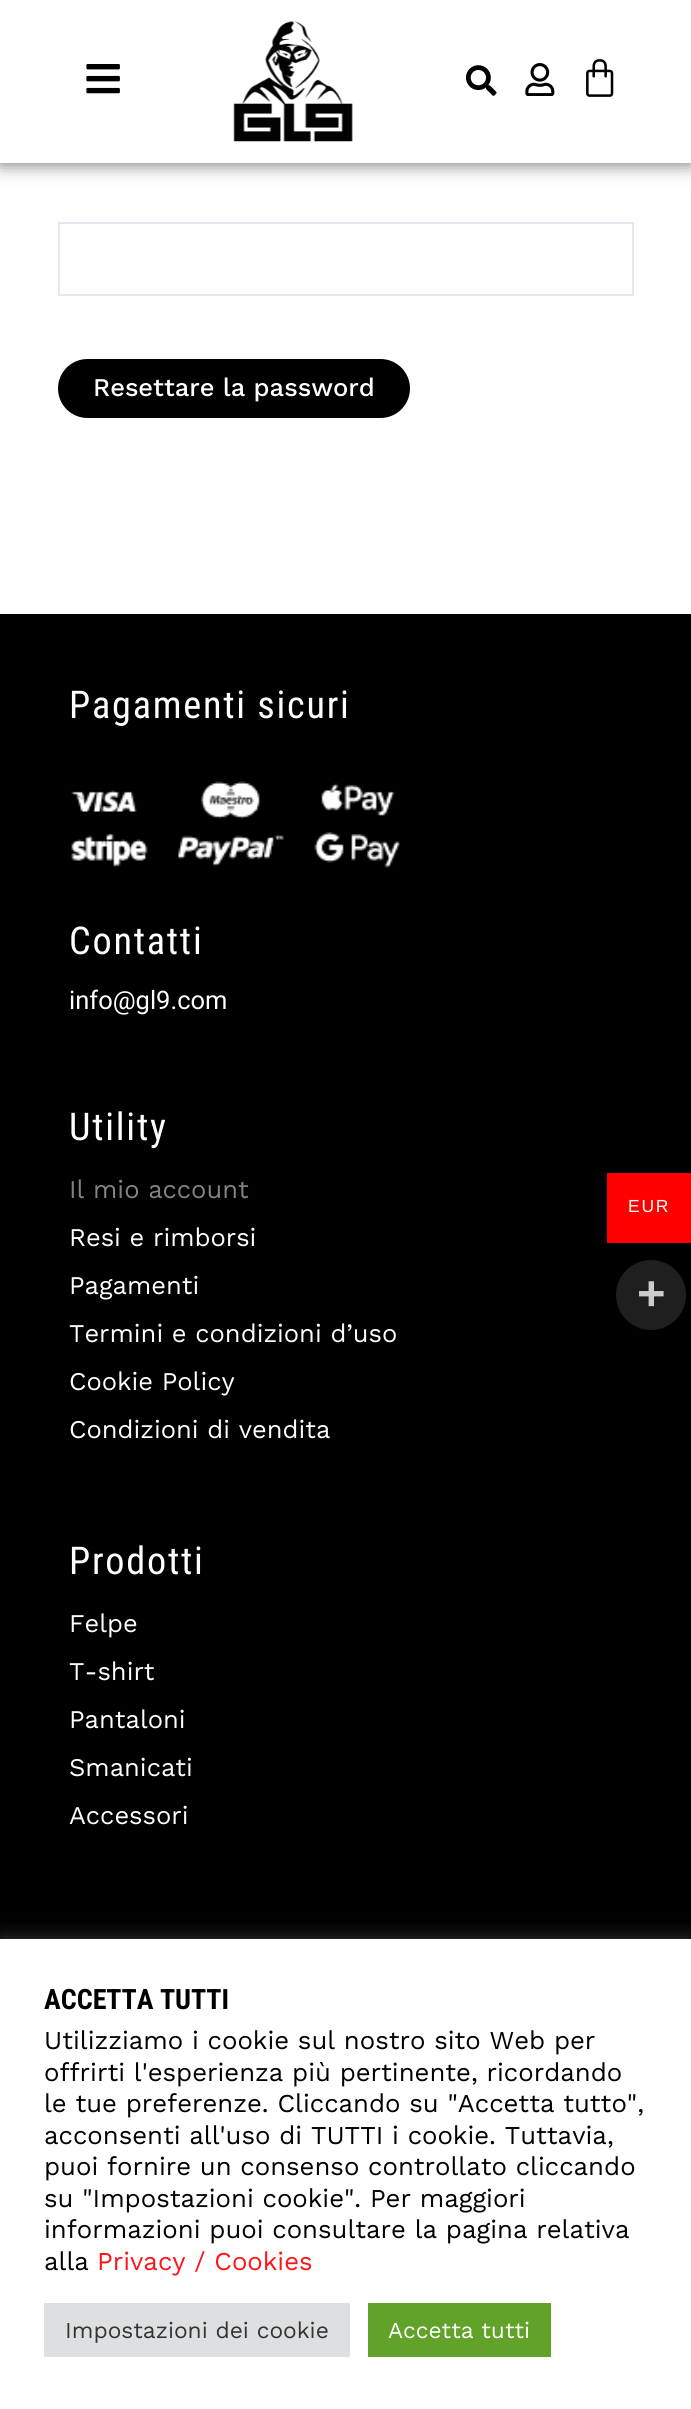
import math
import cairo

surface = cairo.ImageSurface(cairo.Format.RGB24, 691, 2409)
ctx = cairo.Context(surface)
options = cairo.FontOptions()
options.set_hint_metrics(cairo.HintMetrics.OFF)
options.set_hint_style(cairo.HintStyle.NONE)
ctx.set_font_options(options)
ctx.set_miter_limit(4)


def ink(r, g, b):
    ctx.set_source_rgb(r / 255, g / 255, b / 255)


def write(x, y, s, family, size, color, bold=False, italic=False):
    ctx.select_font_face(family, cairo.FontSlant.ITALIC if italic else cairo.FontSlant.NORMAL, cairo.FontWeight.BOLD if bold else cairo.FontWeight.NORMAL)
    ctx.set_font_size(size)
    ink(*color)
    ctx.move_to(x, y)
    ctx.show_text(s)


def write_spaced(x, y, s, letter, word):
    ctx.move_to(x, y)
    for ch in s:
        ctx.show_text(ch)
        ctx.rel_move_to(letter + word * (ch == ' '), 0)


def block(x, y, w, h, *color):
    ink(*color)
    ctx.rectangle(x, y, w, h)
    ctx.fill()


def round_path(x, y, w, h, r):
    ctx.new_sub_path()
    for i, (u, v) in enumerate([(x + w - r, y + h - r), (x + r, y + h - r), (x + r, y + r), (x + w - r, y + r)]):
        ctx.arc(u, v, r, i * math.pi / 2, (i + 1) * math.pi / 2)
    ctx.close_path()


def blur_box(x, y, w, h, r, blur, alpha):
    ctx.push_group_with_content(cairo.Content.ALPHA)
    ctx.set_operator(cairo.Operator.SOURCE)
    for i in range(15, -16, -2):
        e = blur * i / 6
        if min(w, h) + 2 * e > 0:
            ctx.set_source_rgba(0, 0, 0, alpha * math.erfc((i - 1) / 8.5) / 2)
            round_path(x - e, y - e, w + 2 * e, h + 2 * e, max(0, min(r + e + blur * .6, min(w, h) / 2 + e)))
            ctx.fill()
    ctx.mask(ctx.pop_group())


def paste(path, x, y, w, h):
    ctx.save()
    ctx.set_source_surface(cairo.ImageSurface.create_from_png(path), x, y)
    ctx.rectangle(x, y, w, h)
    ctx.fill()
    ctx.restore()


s1 = dict(family="Work Sans Medium", size=25.5, color=(255, 255, 255))
s2 = dict(family="Roboto", size=25.5, color=(255, 255, 255))
s3 = dict(family="Work Sans", size=25.5, color=(131, 131, 131))
s4 = dict(family="Work Sans", size=25.5, color=(255, 255, 255))
s5 = dict(family="Liberation Sans", size=49, color=(204, 204, 204), bold=True)
s6 = dict(family="Roboto Condensed", size=28, color=(0, 0, 0), bold=True)
s7 = dict(family="Work Sans", size=25.7, color=(0, 0, 0))
s8 = dict(family="Work Sans", size=25.7, color=(254, 20, 25))
s9 = dict(family="Work Sans", size=22.75, color=(51, 51, 51))
s10 = dict(family="Work Sans", size=22.75, color=(255, 255, 255))

ink(255, 255, 255)
ctx.paint()
ink(0, 0, 0)
blur_box(0, 2, 691, 163, 0, 9, 0.5)
block(0, 0, 691, 163, 255, 255, 255)
paste("pic1.png", 86, 64, 34, 30)
paste("pic2.png", 233, 21, 120, 121)
paste("pic3.png", 466, 65, 31, 31)
paste("pic4.png", 525, 63, 30, 33)
paste("pic5.png", 586, 59, 28, 38)
ctx.rectangle(59, 223, 574, 72)
ink(226, 232, 240)
ctx.stroke()
ink(0, 0, 0)
round_path(58, 359, 352, 59, 29.5)
ctx.fill()
write(93, 396, "Resettare la password", **s1)
block(0, 614, 691, 1325, 0, 0, 0)
ctx.select_font_face("Roboto Condensed")
ctx.set_font_size(38.25)
ink(255, 255, 255)
write_spaced(69, 718, "Pagamenti sicuri", 1.75, 0)
paste("pic6.png", 71, 781, 329, 87)
write_spaced(69, 954, "Contatti", 1.75, 0)
write(69, 1009, "info@gl9.com", **s2)
ctx.select_font_face("Roboto Condensed")
ctx.set_font_size(38.25)
write_spaced(69, 1140, "Utility", 1.75, 0)
write(69, 1198, "Il mio account", **s3)
write(69, 1246, "Resi e rimborsi", **s4)
write(69, 1294, "Pagamenti", **s4)
write(69, 1342, "Termini e condizioni d’uso", **s4)
write(69, 1390, "Cookie Policy", **s4)
write(69, 1438, "Condizioni di vendita", **s4)
ctx.select_font_face("Roboto Condensed")
ctx.set_font_size(38.25)
write_spaced(69, 1574, "Prodotti", 1.75, 0)
write(69, 1632, "Felpe", **s4)
write(69, 1680, "T-shirt", **s4)
write(69, 1728, "Pantaloni", **s4)
write(69, 1776, "Smanicati", **s4)
write(69, 1824, "Accessori", **s4)
block(607, 1173, 84, 70, 255, 0, 0)
ctx.select_font_face("Liberation Sans")
ctx.set_font_size(17.5)
ink(255, 255, 255)
write_spaced(628, 1212, "EUR", 1.75, 0)
ink(31, 31, 31)
ctx.new_path()
ctx.arc(651, 1295, 35, 0, 2 * math.pi)
ctx.fill()
write(637, 1310, "+", **s5)
ink(172, 171, 171)
blur_box(0, 1937, 691, 471, 0, 9, 0.3)
block(0, 1939, 691, 470, 255, 255, 255)
write(44, 2009, "ACCETTA TUTTI", **s6)
write(44, 2049, "Utilizziamo i cookie sul nostro sito Web per", **s7)
write(44, 2081, "offrirti l'esperienza più pertinente, ricordando", **s7)
write(44, 2112, "le tue preferenze. Cliccando su \"Accetta tutto\",", **s7)
write(44, 2144, "acconsenti all'uso di TUTTI i cookie. Tuttavia,", **s7)
write(44, 2175, "puoi fornire un consenso controllato cliccando", **s7)
write(44, 2207, "su \"Impostazioni cookie\". Per maggiori", **s7)
write(44, 2238, "informazioni puoi consultare la pagina relativa", **s7)
write(44, 2270, "alla", **s7)
write(97, 2270, "Privacy / Cookies", **s8)
block(44, 2303, 306, 54, 222, 223, 224)
write(65, 2338, "Impostazioni dei cookie", **s9)
block(368, 2303, 183, 54, 97, 162, 41)
write(388, 2338, "Accetta tutti", **s10)
surface.write_to_png("screenshot.png")
